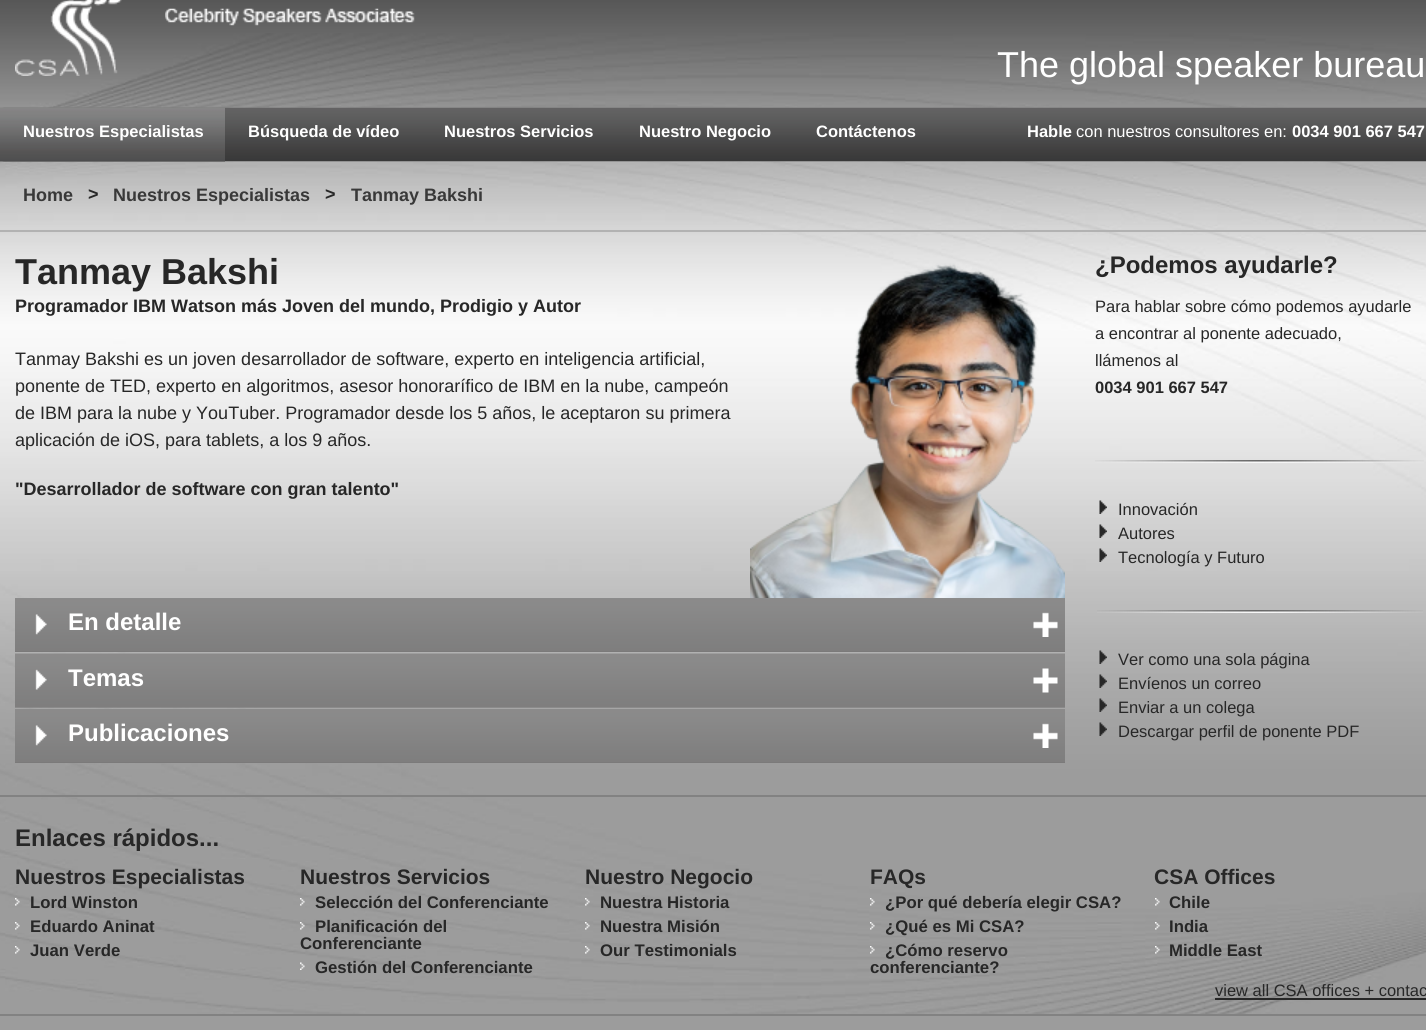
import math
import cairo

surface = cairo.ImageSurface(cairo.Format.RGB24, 1426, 1030)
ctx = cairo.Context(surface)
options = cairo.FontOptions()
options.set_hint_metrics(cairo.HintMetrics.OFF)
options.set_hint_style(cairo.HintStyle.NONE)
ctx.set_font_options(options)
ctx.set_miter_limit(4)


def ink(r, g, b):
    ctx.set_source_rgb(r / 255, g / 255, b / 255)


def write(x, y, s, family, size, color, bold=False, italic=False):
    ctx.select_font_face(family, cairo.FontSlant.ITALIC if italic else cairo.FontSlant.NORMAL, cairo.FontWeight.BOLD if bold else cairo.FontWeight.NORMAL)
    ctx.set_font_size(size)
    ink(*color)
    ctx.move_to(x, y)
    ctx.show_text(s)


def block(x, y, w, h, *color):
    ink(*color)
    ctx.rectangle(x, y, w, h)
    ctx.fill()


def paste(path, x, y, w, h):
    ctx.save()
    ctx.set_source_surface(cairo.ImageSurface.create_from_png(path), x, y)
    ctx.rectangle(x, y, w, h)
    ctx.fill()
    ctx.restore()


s1 = dict(family="Liberation Sans", size=36, color=(255, 255, 255))
s2 = dict(family="Liberation Sans", size=16.5, color=(255, 255, 255), bold=True)
s3 = dict(family="Liberation Sans", size=16.5, color=(255, 255, 255))
s4 = dict(family="Liberation Sans", size=18, color=(57, 57, 57), bold=True)
s5 = dict(family="Liberation Sans", size=18, color=(39, 39, 39), bold=True)
s6 = dict(family="Liberation Sans", size=36, color=(39, 39, 39), bold=True)
s7 = dict(family="Liberation Sans", size=18, color=(39, 39, 39))
s8 = dict(family="Liberation Sans", size=24, color=(255, 255, 255), bold=True)
s9 = dict(family="Liberation Sans", size=24, color=(39, 39, 39), bold=True)
s10 = dict(family="Liberation Sans", size=16.5, color=(39, 39, 39))
s11 = dict(family="Liberation Sans", size=16.5, color=(39, 39, 39), bold=True)
s12 = dict(family="Liberation Sans", size=21, color=(39, 39, 39), bold=True)
s13 = dict(family="Liberation Sans", size=16.75, color=(39, 39, 39), bold=True)

ink(156, 156, 156)
ctx.paint()
paste("pic1.png", 0, 0, 1426, 33)
paste("pic2.png", 0, 33, 1426, 981)
paste("pic3.png", 15, 0, 107, 76)
paste("pic4.png", 165, 8, 250, 18)
write(997, 77, "The global speaker bureau", **s1)
paste("pic5.png", 2, 107, 1424, 55)
paste("pic6.png", 0, 107, 225, 55)
write(23, 137, "Nuestros Especialistas", **s2)
write(248, 137, "Búsqueda de vídeo", **s2)
write(444, 137, "Nuestros Servicios", **s2)
write(639, 137, "Nuestro Negocio", **s2)
write(816, 137, "Contáctenos", **s2)
write(1027, 137, "Hable", **s2)
write(1076, 137, "con nuestros consultores en:", **s3)
write(1292, 137, "0034 901 667 547", **s2)
write(23, 201, "Home", **s4)
write(88, 200, ">", **s5)
write(113, 201, "Nuestros Especialistas", **s4)
write(325, 200, ">", **s5)
write(351, 201, "Tanmay Bakshi", **s4)
block(0, 230, 1426, 2, 178, 178, 178)
write(15, 284, "Tanmay Bakshi", **s6)
write(15, 312, "Programador IBM Watson más Joven del mundo, Prodigio y Autor", **s5)
write(15, 365, "Tanmay Bakshi es un joven desarrollador de software, experto en inteligencia artificial,", **s7)
write(15, 392, "ponente de TED, experto en algoritmos, asesor honorarífico de IBM en la nube, campeón", **s7)
write(15, 419, "de IBM para la nube y YouTuber. Programador desde los 5 años, le aceptaron su primera", **s7)
write(15, 446, "aplicación de iOS, para tablets, a los 9 años.", **s7)
write(15, 495, "\"Desarrollador de software con gran talento\"", **s5)
paste("pic7.png", 750, 263, 315, 335)
paste("pic8.png", 15, 598, 1050, 54)
paste("pic9.png", 35, 614, 12, 21)
paste("pic10.png", 1033, 612, 25, 25)
write(68, 630, "En detalle", **s8)
paste("pic11.png", 15, 653, 1050, 55)
paste("pic12.png", 35, 669, 12, 21)
paste("pic13.png", 1033, 668, 25, 25)
write(68, 686, "Temas", **s8)
paste("pic8.png", 15, 709, 1050, 54)
paste("pic9.png", 35, 725, 12, 21)
paste("pic10.png", 1033, 723, 25, 25)
write(68, 741, "Publicaciones", **s8)
write(1095, 273, "¿Podemos ayudarle?", **s9)
write(1095, 312, "Para hablar sobre cómo podemos ayudarle", **s10)
write(1095, 339, "a encontrar al ponente adecuado,", **s10)
write(1095, 366, "llámenos al", **s10)
write(1095, 393, "0034 901 667 547", **s11)
paste("pic14.png", 1095, 460, 329, 3)
paste("pic15.png", 1099, 500, 8, 14)
write(1118, 515, "Innovación", **s10)
paste("pic16.png", 1099, 524, 8, 14)
write(1118, 539, "Autores", **s10)
paste("pic17.png", 1099, 548, 8, 14)
write(1118, 563, "Tecnología y Futuro", **s10)
paste("pic18.png", 1097, 610, 326, 3)
paste("pic19.png", 1099, 650, 8, 14)
write(1118, 665, "Ver como una sola página", **s10)
paste("pic20.png", 1099, 674, 8, 14)
write(1118, 689, "Envíenos un correo", **s10)
paste("pic21.png", 1099, 698, 8, 14)
write(1118, 713, "Enviar a un colega", **s10)
paste("pic22.png", 1099, 722, 8, 14)
write(1118, 737, "Descargar perfil de ponente PDF", **s10)
block(0, 795, 1426, 2, 130, 130, 130)
block(0, 1014, 1426, 2, 130, 130, 130)
write(15, 846, "Enlaces rápidos...", **s9)
write(15, 884, "Nuestros Especialistas", **s12)
paste("pic23.png", 15, 898, 5, 8)
write(30, 908, "Lord Winston", **s13)
paste("pic24.png", 15, 922, 5, 8)
write(30, 932, "Eduardo Aninat", **s13)
paste("pic24.png", 15, 946, 5, 8)
write(30, 956, "Juan Verde", **s13)
write(300, 884, "Nuestros Servicios", **s12)
paste("pic25.png", 300, 898, 5, 8)
write(315, 908, "Selección del Conferenciante", **s13)
paste("pic26.png", 300, 922, 5, 8)
write(315, 932, "Planificación del", **s13)
write(300, 949, "Conferenciante", **s13)
paste("pic27.png", 300, 962, 5, 8)
write(315, 973, "Gestión del Conferenciante", **s13)
write(585, 884, "Nuestro Negocio", **s12)
paste("pic28.png", 585, 898, 5, 8)
write(600, 908, "Nuestra Historia", **s13)
paste("pic29.png", 585, 922, 5, 8)
write(600, 932, "Nuestra Misión", **s13)
paste("pic30.png", 585, 946, 5, 8)
write(600, 956, "Our Testimonials", **s13)
write(870, 884, "FAQs", **s12)
paste("pic31.png", 870, 898, 5, 8)
write(885, 908, "¿Por qué debería elegir CSA?", **s13)
paste("pic32.png", 870, 922, 5, 8)
write(885, 932, "¿Qué es Mi CSA?", **s13)
paste("pic33.png", 870, 946, 5, 8)
write(885, 956, "¿Cómo reservo", **s13)
write(870, 973, "conferenciante?", **s13)
write(1154, 884, "CSA Offices", **s12)
paste("pic30.png", 1155, 898, 5, 8)
write(1169, 908, "Chile", **s13)
paste("pic34.png", 1155, 922, 5, 8)
write(1169, 932, "India", **s13)
paste("pic35.png", 1155, 946, 5, 8)
write(1169, 956, "Middle East", **s13)
write(1215, 996, "view all CSA offices + contac", **s10)
block(1215, 998, 211, 2, 39, 39, 39)
surface.write_to_png("screenshot.png")
